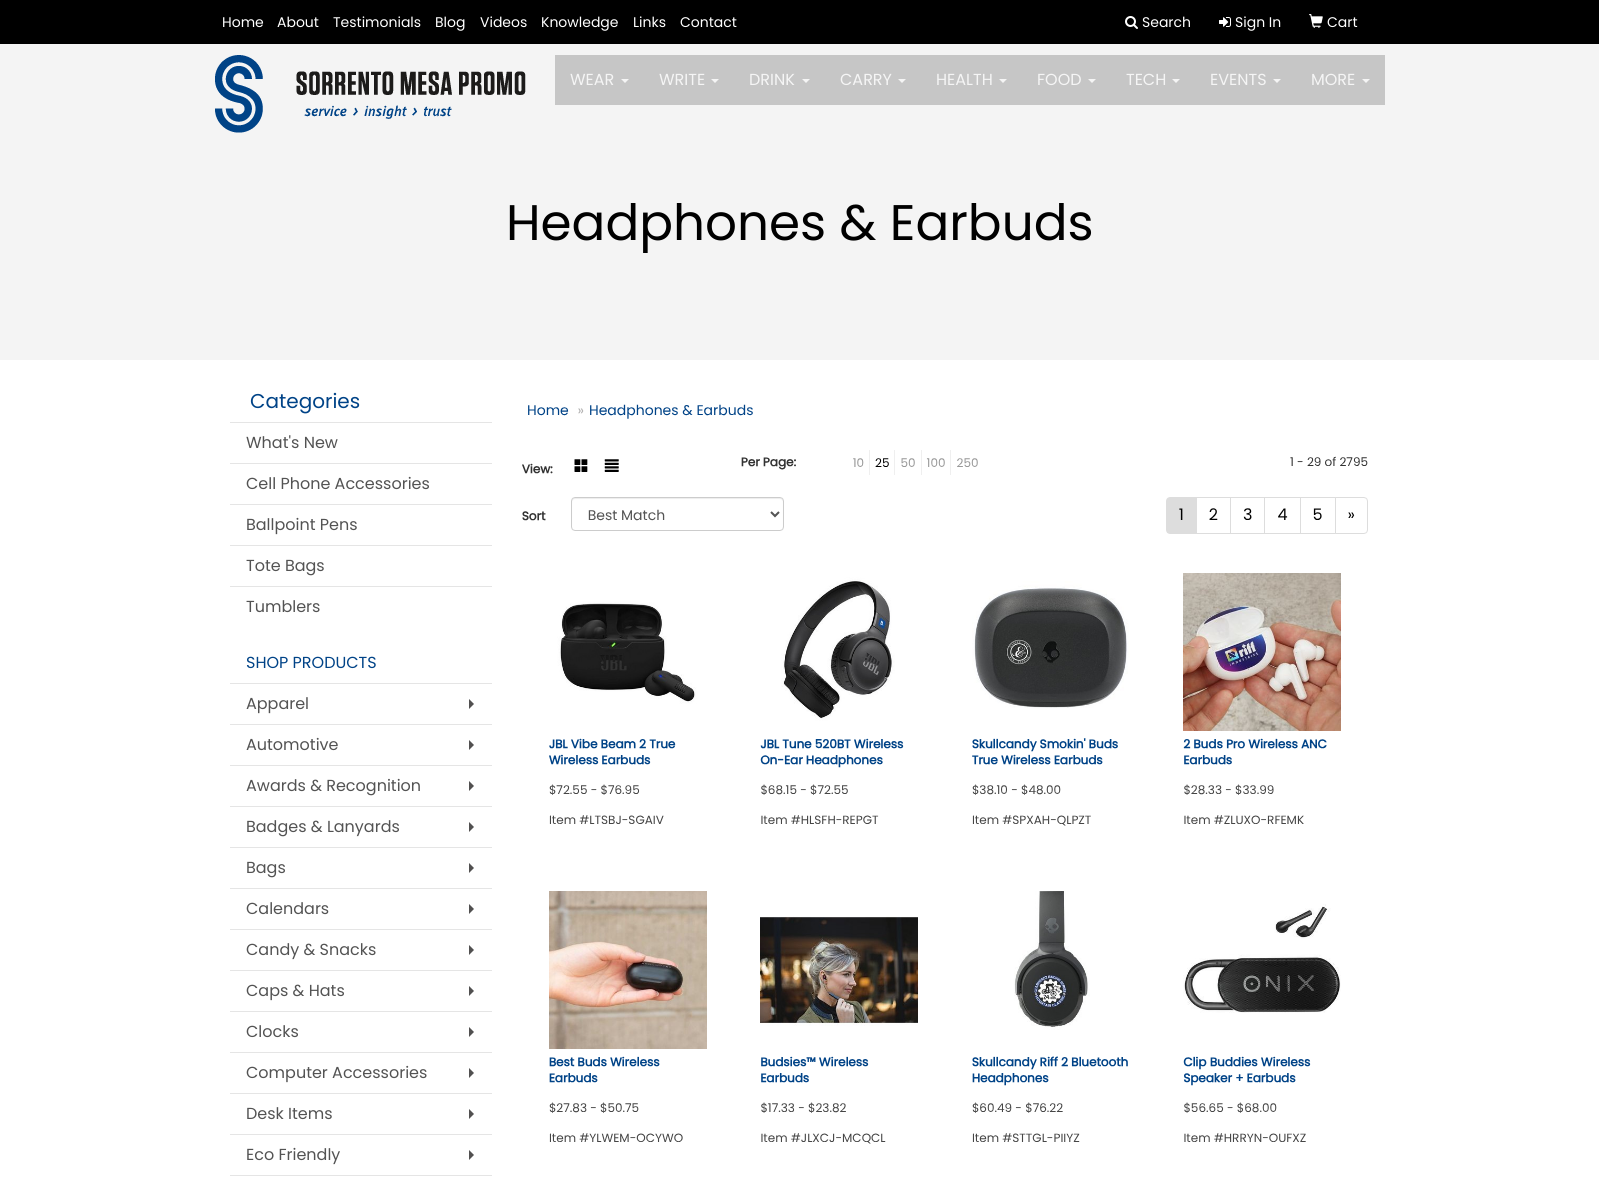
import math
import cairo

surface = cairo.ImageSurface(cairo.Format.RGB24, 1599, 1189)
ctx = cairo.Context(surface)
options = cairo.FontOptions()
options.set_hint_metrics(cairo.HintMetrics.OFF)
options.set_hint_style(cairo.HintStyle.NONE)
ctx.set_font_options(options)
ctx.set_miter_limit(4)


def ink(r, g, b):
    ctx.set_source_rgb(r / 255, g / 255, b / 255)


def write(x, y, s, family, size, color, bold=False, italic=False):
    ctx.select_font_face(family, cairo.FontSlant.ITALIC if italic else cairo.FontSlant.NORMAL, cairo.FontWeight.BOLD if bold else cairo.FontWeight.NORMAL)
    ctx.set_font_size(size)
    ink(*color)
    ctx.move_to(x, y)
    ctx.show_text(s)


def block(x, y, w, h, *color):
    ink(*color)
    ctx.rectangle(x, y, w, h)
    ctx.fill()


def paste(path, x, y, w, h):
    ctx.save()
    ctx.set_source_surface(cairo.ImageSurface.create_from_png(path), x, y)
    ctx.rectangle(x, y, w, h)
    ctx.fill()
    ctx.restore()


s1 = dict(family="Poppins", size=14, color=(255, 255, 255))
s2 = dict(family="Poppins", size=16, color=(245, 245, 245))
s3 = dict(family="Poppins", size=50, color=(0, 0, 0))
s4 = dict(family="Poppins", size=20, color=(0, 67, 135))
s5 = dict(family="Poppins", size=16, color=(83, 83, 83))
s6 = dict(family="Poppins", size=16, color=(0, 67, 135))

ink(244, 244, 244)
ctx.paint()
block(0, 0, 1599, 44, 0, 0, 0)
write(222, 27, "Home", **s1)
write(277, 27, "About", **s1)
write(333, 27, "Testimonials", **s1)
write(435, 27, "Blog", **s1)
write(480, 27, "Videos", **s1)
write(541, 27, "Knowledge", **s1)
write(633, 27, "Links", **s1)
write(680, 27, "Contact", **s1)
paste("pic1.png", 1125, 16, 13, 13)
write(1142, 27, "Search", **s1)
paste("pic2.png", 1219, 17, 12, 10)
write(1235, 27, "Sign In", **s1)
paste("pic3.png", 1309, 14, 14, 14)
write(1327, 27, "Cart", **s1)
paste("pic4.png", 215, 55, 311, 78)
block(555, 55, 830, 50, 198, 198, 198)
write(570, 85, "WEAR", **s2)
ctx.new_path()
ctx.move_to(621, 79)
ctx.line_to(629, 79)
ctx.line_to(625, 83)
ctx.close_path()
ctx.fill()
write(659, 85, "WRITE", **s2)
ctx.new_path()
ctx.move_to(711, 79)
ctx.line_to(719, 79)
ctx.line_to(715, 83)
ctx.close_path()
ctx.fill()
write(749, 85, "DRINK", **s2)
ctx.new_path()
ctx.move_to(802, 79)
ctx.line_to(810, 79)
ctx.line_to(806, 83)
ctx.close_path()
ctx.fill()
write(840, 85, "CARRY", **s2)
ctx.new_path()
ctx.move_to(898, 79)
ctx.line_to(906, 79)
ctx.line_to(902, 83)
ctx.close_path()
ctx.fill()
write(936, 85, "HEALTH", **s2)
ctx.new_path()
ctx.move_to(999, 79)
ctx.line_to(1007, 79)
ctx.line_to(1003, 83)
ctx.close_path()
ctx.fill()
write(1037, 85, "FOOD", **s2)
ctx.new_path()
ctx.move_to(1088, 79)
ctx.line_to(1096, 79)
ctx.line_to(1092, 83)
ctx.close_path()
ctx.fill()
write(1126, 85, "TECH", **s2)
ctx.new_path()
ctx.move_to(1172, 79)
ctx.line_to(1180, 79)
ctx.line_to(1176, 83)
ctx.close_path()
ctx.fill()
write(1210, 85, "EVENTS", **s2)
ctx.new_path()
ctx.move_to(1273, 79)
ctx.line_to(1281, 79)
ctx.line_to(1277, 83)
ctx.close_path()
ctx.fill()
write(1311, 85, "MORE", **s2)
ctx.new_path()
ctx.move_to(1362, 79)
ctx.line_to(1370, 79)
ctx.line_to(1366, 83)
ctx.close_path()
ctx.fill()
write(506, 240, "Headphones & Earbuds", **s3)
block(0, 360, 1599, 829, 255, 255, 255)
write(250, 408, "Categories", **s4)
block(230, 422, 262, 1, 229, 229, 229)
write(246, 448, "What's New", **s5)
block(230, 463, 262, 1, 229, 229, 229)
write(246, 489, "Cell Phone Accessories", **s5)
block(230, 504, 262, 1, 229, 229, 229)
write(246, 530, "Ballpoint Pens", **s5)
block(230, 545, 262, 1, 229, 229, 229)
write(246, 571, "Tote Bags", **s5)
block(230, 586, 262, 1, 229, 229, 229)
write(246, 612, "Tumblers", **s5)
write(246, 668, "SHOP PRODUCTS", **s6)
block(230, 683, 262, 1, 229, 229, 229)
write(246, 709, "Apparel", **s5)
ink(81, 80, 80)
ctx.new_path()
ctx.move_to(469, 709)
ctx.line_to(469, 699)
ctx.line_to(474, 704)
ctx.close_path()
ctx.fill()
block(230, 724, 262, 1, 229, 229, 229)
write(246, 750, "Automotive", **s5)
ink(81, 80, 80)
ctx.new_path()
ctx.move_to(469, 750)
ctx.line_to(469, 740)
ctx.line_to(474, 745)
ctx.close_path()
ctx.fill()
block(230, 765, 262, 1, 229, 229, 229)
write(246, 791, "Awards & Recognition", **s5)
ink(81, 80, 80)
ctx.new_path()
ctx.move_to(469, 791)
ctx.line_to(469, 781)
ctx.line_to(474, 786)
ctx.close_path()
ctx.fill()
block(230, 806, 262, 1, 229, 229, 229)
write(246, 832, "Badges & Lanyards", **s5)
ink(81, 80, 80)
ctx.new_path()
ctx.move_to(469, 832)
ctx.line_to(469, 822)
ctx.line_to(474, 827)
ctx.close_path()
ctx.fill()
block(230, 847, 262, 1, 229, 229, 229)
write(246, 873, "Bags", **s5)
ink(81, 80, 80)
ctx.new_path()
ctx.move_to(469, 873)
ctx.line_to(469, 863)
ctx.line_to(474, 868)
ctx.close_path()
ctx.fill()
block(230, 888, 262, 1, 229, 229, 229)
write(246, 914, "Calendars", **s5)
ink(81, 80, 80)
ctx.new_path()
ctx.move_to(469, 914)
ctx.line_to(469, 904)
ctx.line_to(474, 909)
ctx.close_path()
ctx.fill()
block(230, 929, 262, 1, 229, 229, 229)
write(246, 955, "Candy & Snacks", **s5)
ink(81, 80, 80)
ctx.new_path()
ctx.move_to(469, 955)
ctx.line_to(469, 945)
ctx.line_to(474, 950)
ctx.close_path()
ctx.fill()
block(230, 970, 262, 1, 229, 229, 229)
write(246, 996, "Caps & Hats", **s5)
ink(81, 80, 80)
ctx.new_path()
ctx.move_to(469, 996)
ctx.line_to(469, 986)
ctx.line_to(474, 991)
ctx.close_path()
ctx.fill()
block(230, 1011, 262, 1, 229, 229, 229)
write(246, 1037, "Clocks", **s5)
ink(81, 80, 80)
ctx.new_path()
ctx.move_to(469, 1037)
ctx.line_to(469, 1027)
ctx.line_to(474, 1032)
ctx.close_path()
ctx.fill()
block(230, 1052, 262, 1, 229, 229, 229)
write(246, 1078, "Computer Accessories", **s5)
ink(81, 80, 80)
ctx.new_path()
ctx.move_to(469, 1078)
ctx.line_to(469, 1068)
ctx.line_to(474, 1073)
ctx.close_path()
ctx.fill()
block(230, 1093, 262, 1, 229, 229, 229)
write(246, 1119, "Desk Items", **s5)
ink(81, 80, 80)
ctx.new_path()
ctx.move_to(469, 1119)
ctx.line_to(469, 1109)
ctx.line_to(474, 1114)
ctx.close_path()
ctx.fill()
block(230, 1134, 262, 1, 229, 229, 229)
write(246, 1160, "Eco Friendly", **s5)
ink(81, 80, 80)
ctx.new_path()
ctx.move_to(469, 1160)
ctx.line_to(469, 1150)
ctx.line_to(474, 1155)
ctx.close_path()
ctx.fill()
block(230, 1175, 262, 1, 229, 229, 229)
paste("pic5.png", 522, 404, 846, 740)
surface.write_to_png("screenshot.png")
